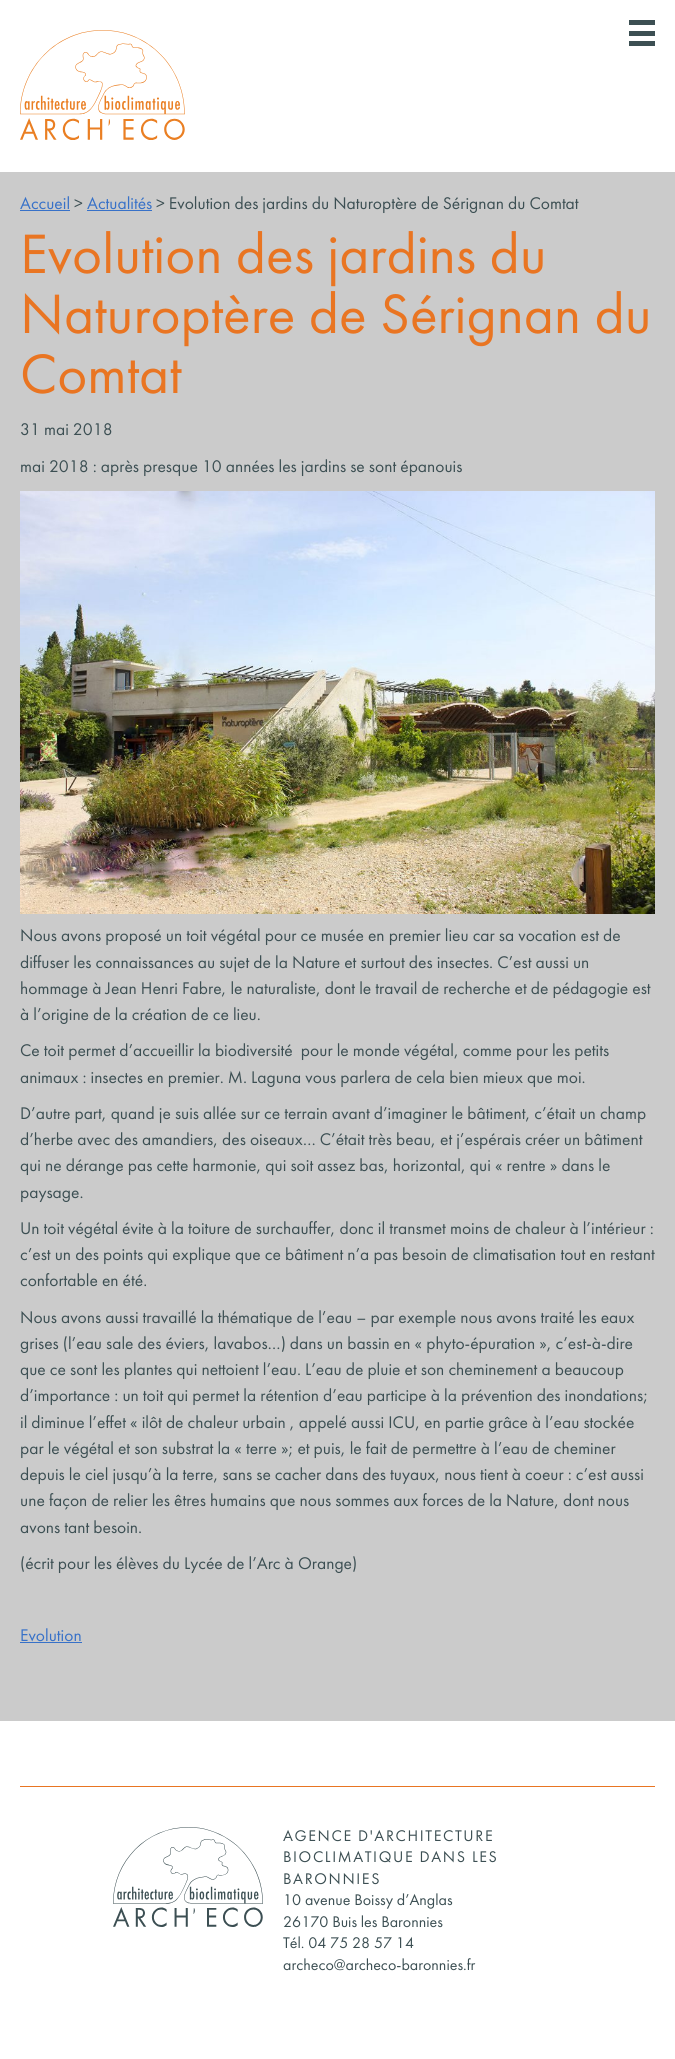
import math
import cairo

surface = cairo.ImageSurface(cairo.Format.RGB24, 675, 2059)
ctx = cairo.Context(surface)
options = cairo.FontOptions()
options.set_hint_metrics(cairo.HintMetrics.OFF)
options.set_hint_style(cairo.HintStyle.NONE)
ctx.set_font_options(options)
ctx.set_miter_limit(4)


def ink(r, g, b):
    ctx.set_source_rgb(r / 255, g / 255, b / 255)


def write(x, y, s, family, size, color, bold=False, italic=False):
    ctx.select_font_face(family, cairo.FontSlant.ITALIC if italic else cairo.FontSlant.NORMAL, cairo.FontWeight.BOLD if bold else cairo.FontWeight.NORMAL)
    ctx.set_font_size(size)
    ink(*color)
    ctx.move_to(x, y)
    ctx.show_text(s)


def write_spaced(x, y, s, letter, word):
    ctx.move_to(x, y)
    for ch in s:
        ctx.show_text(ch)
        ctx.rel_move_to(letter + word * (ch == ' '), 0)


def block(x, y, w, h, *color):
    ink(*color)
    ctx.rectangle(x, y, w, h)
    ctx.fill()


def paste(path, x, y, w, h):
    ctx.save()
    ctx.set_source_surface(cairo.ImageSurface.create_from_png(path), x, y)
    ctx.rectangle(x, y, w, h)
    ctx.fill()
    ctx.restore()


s1 = dict(family="Futura", size=17.5, color=(55, 113, 200))
s2 = dict(family="Futura", size=17.5, color=(60, 79, 83))
s3 = dict(family="Futura", size=57.5, color=(233, 117, 34))
s4 = dict(family="Futura", size=16, color=(60, 79, 83))

ink(255, 255, 255)
ctx.paint()
paste("pic1.png", 20, 30, 165, 110)
block(629, 31, 26, 5, 60, 79, 83)
block(629, 20, 26, 5, 60, 79, 83)
block(629, 41, 26, 5, 60, 79, 83)
block(0, 172, 675, 1549, 203, 203, 203)
write(20, 209, "Accueil", **s1)
block(20, 210, 50, 1, 55, 113, 200)
write(74, 209, ">", **s2)
write(87, 209, "Actualités", **s1)
block(87, 210, 65, 1, 55, 113, 200)
write(156, 209, "> Evolution des jardins du Naturoptère de Sérignan du Comtat", **s2)
write(20, 273, "Evolution des jardins du", **s3)
write(20, 333, "Naturoptère de Sérignan du", **s3)
write(20, 393, "Comtat", **s3)
write(20, 435, "31 mai 2018", **s2)
write(20, 472, "mai 2018 : après presque 10 années les jardins se sont épanouis", **s2)
paste("pic2.png", 20, 491, 635, 423)
write(20, 941, "Nous avons proposé un toit végétal pour ce musée en premier lieu car sa vocation est de", **s2)
write(20, 968, "diffuser les connaissances au sujet de la Nature et surtout des insectes. C’est aussi un", **s2)
write(20, 994, "hommage à Jean Henri Fabre, le naturaliste, dont le travail de recherche et de pédagogie est", **s2)
write(20, 1020, "à l’origine de la création de ce lieu.", **s2)
write(20, 1056, "Ce toit permet d’accueillir la biodiversité  pour le monde végétal, comme pour les petits", **s2)
write(20, 1083, "animaux : insectes en premier. M. Laguna vous parlera de cela bien mieux que moi.", **s2)
write(20, 1119, "D’autre part, quand je suis allée sur ce terrain avant d’imaginer le bâtiment, c’était un champ", **s2)
write(20, 1145, "d’herbe avec des amandiers, des oiseaux… C’était très beau, et j’espérais créer un bâtiment", **s2)
write(20, 1171, "qui ne dérange pas cette harmonie, qui soit assez bas, horizontal, qui « rentre » dans le", **s2)
write(20, 1198, "paysage.", **s2)
write(20, 1234, "Un toit végétal évite à la toiture de surchauffer, donc il transmet moins de chaleur à l’intérieur :", **s2)
write(20, 1260, "c’est un des points qui explique que ce bâtiment n’a pas besoin de climatisation tout en restant", **s2)
write(20, 1286, "confortable en été.", **s2)
write(20, 1323, "Nous avons aussi travaillé la thématique de l’eau – par exemple nous avons traité les eaux", **s2)
write(20, 1349, "grises (l’eau sale des éviers, lavabos…) dans un bassin en « phyto-épuration », c’est-à-dire", **s2)
write(20, 1375, "que ce sont les plantes qui nettoient l’eau. L’eau de pluie et son cheminement a beaucoup", **s2)
write(20, 1401, "d’importance : un toit qui permet la rétention d’eau participe à la prévention des inondations;", **s2)
write(20, 1428, "il diminue l’effet « ilôt de chaleur urbain , appelé aussi ICU, en partie grâce à l’eau stockée", **s2)
write(20, 1454, "par le végétal et son substrat la « terre »; et puis, le fait de permettre à l’eau de cheminer", **s2)
write(20, 1480, "depuis le ciel jusqu’à la terre, sans se cacher dans des tuyaux, nous tient à coeur : c’est aussi", **s2)
write(20, 1506, "une façon de relier les êtres humains que nous sommes aux forces de la Nature, dont nous", **s2)
write(20, 1533, "avons tant besoin.", **s2)
write(20, 1569, "(écrit pour les élèves du Lycée de l’Arc à Orange)", **s2)
write(20, 1641, "Evolution", **s1)
block(20, 1642, 62, 1, 55, 113, 200)
block(20, 1786, 635, 1, 233, 117, 34)
paste("pic3.png", 113, 1827, 150, 100)
ctx.set_font_size(16)
ink(60, 79, 83)
write_spaced(283, 1841, "AGENCE D'ARCHITECTURE", 1.6, 0)
write_spaced(283, 1862, "BIOCLIMATIQUE DANS LES", 1.6, 0)
write_spaced(283, 1884, "BARONNIES", 1.6, 0)
write(283, 1905, "10 avenue Boissy d’Anglas", **s4)
write(283, 1927, "26170 Buis les Baronnies", **s4)
write(283, 1948, "Tél. 04 75 28 57 14", **s4)
write(283, 1970, "archeco@archeco-baronnies.fr", **s4)
surface.write_to_png("screenshot.png")
